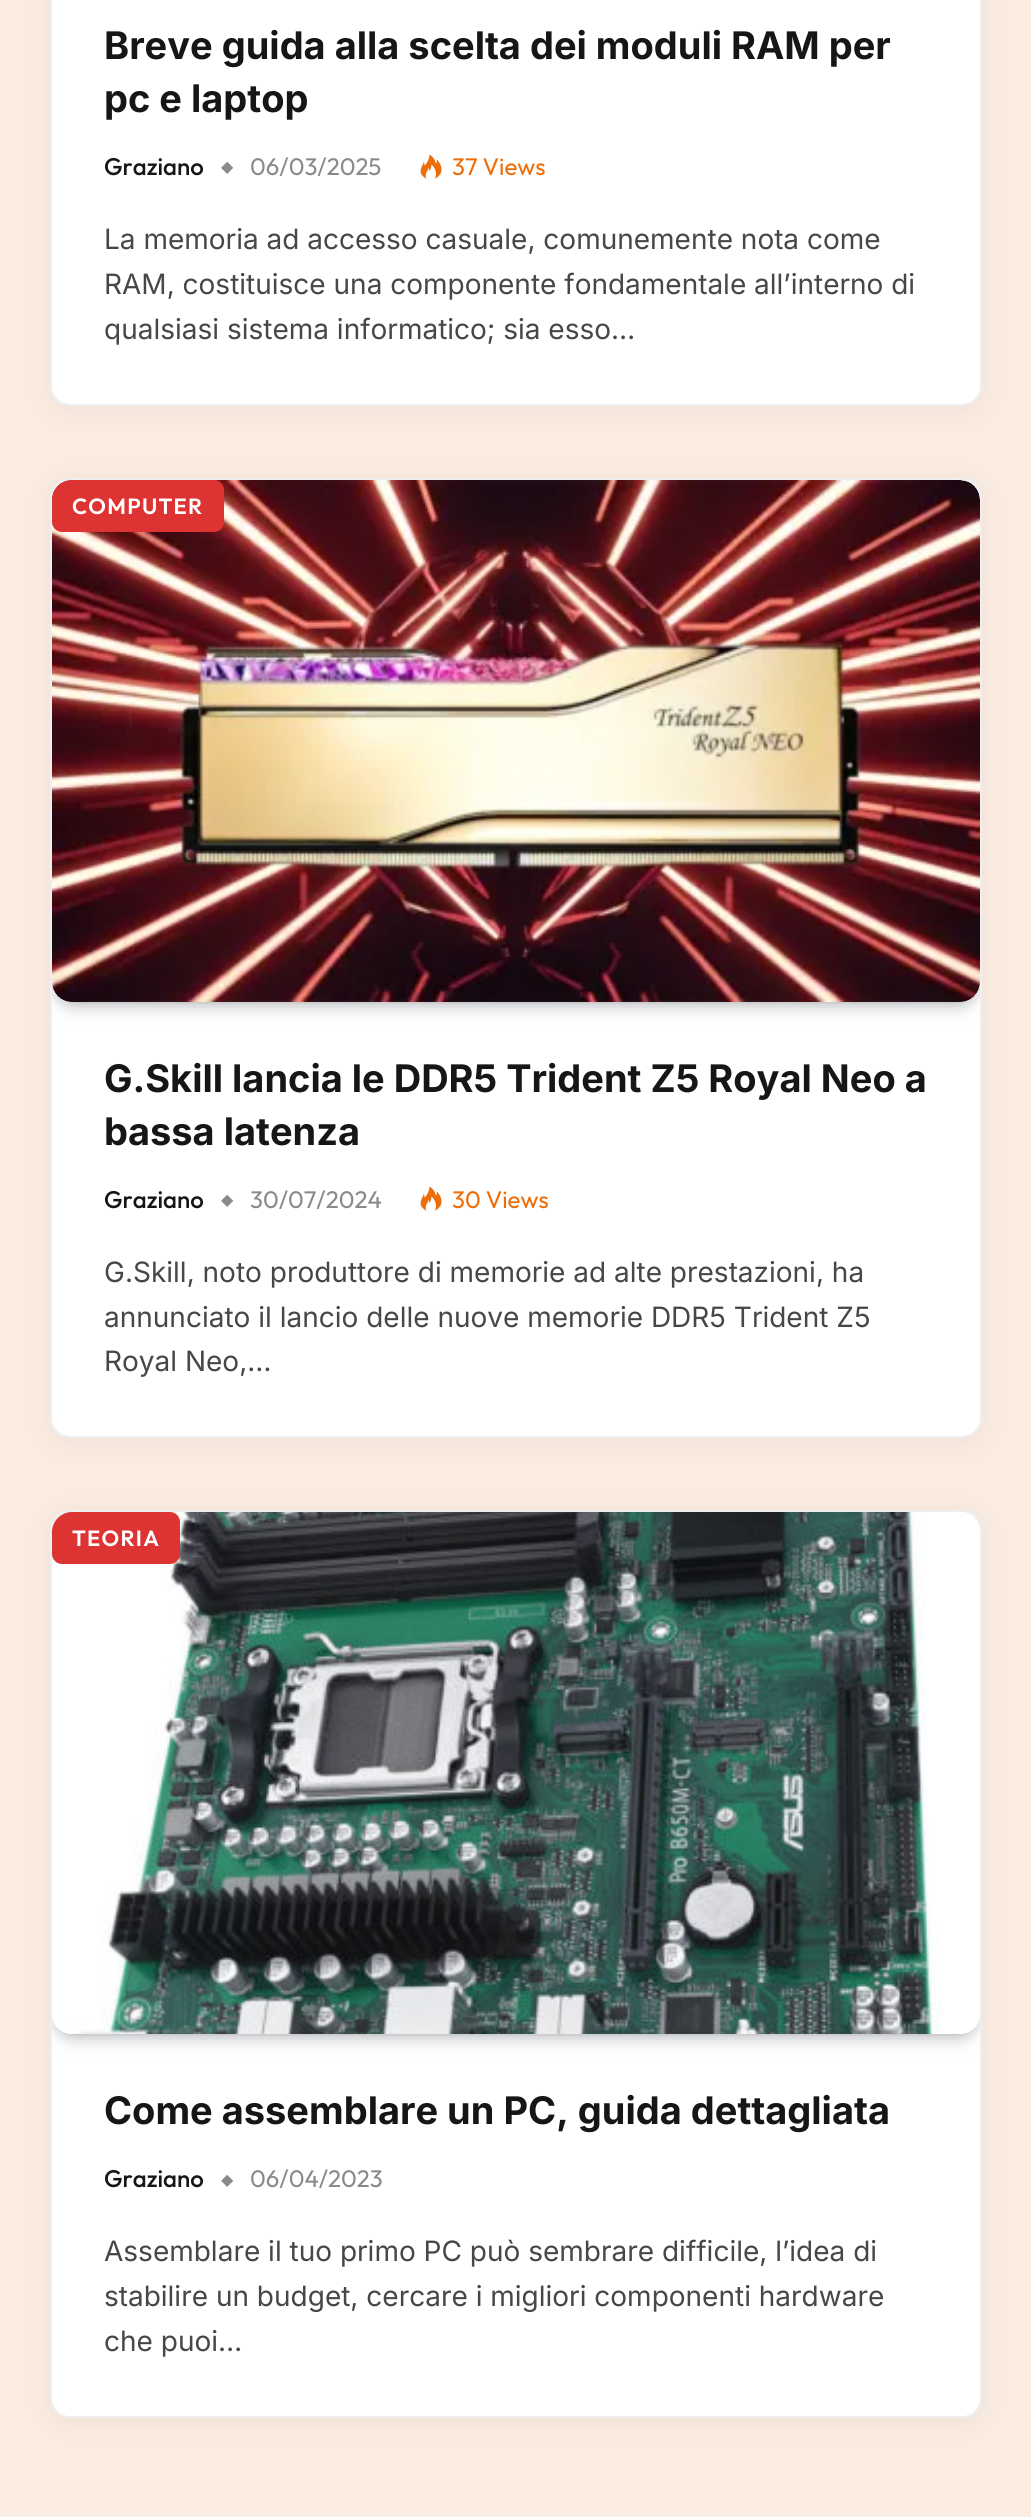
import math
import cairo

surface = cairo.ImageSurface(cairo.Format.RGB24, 1031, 2517)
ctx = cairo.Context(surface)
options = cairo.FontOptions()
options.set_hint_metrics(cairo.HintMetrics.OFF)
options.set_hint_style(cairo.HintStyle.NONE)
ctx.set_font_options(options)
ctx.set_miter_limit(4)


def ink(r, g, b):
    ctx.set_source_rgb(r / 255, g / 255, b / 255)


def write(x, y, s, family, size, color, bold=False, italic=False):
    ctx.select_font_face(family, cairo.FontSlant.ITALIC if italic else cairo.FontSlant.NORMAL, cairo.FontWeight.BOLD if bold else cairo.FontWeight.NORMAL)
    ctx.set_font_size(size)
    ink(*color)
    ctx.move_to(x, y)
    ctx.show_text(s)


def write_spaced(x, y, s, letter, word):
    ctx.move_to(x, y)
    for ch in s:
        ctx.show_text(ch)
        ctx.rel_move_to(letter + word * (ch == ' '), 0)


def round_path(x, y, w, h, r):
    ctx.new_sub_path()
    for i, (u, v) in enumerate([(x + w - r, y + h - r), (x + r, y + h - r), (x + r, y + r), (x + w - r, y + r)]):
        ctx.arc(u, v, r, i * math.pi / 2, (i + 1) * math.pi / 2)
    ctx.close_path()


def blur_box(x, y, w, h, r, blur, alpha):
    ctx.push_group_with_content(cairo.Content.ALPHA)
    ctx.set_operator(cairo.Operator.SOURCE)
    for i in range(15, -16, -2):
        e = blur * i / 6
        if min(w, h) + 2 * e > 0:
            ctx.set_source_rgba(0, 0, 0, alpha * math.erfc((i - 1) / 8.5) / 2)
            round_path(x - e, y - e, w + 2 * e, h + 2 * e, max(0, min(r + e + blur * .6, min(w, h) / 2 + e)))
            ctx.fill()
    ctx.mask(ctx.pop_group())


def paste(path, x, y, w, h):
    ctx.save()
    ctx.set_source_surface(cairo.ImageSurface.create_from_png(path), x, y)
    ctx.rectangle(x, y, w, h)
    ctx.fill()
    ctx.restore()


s1 = dict(family="Inter", size=38, color=(22, 22, 22), bold=True)
s2 = dict(family="Outfit Medium", size=24, color=(22, 22, 22))
s3 = dict(family="DejaVu Sans", size=16, color=(138, 138, 138))
s4 = dict(family="Outfit", size=24, color=(138, 138, 138))
s5 = dict(family="Outfit", size=24, color=(237, 109, 8))
s6 = dict(family="Inter", size=28, color=(71, 71, 71))

ink(250, 236, 225)
ctx.paint()
ink(0, 0, 0)
blur_box(52, -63, 928, 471, 18, 15, 0.06)
ink(255, 255, 255)
round_path(51, -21, 930, 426, 19)
ctx.fill_preserve()
ink(239, 239, 239)
ctx.stroke()
write(104, 59, "Breve guida alla scelta dei moduli RAM per", **s1)
write(104, 112, "pc e laptop", **s1)
write(104, 175, "Graziano", **s2)
write(221, 172, "◆", **s3)
write(250, 175, "06/03/2025", **s4)
paste("pic1.png", 420, 154, 22, 25)
write(452, 175, "37 Views", **s5)
write(104, 249, "La memoria ad accesso casuale, comunemente nota come", **s6)
write(104, 294, "RAM, costituisce una componente fondamentale all’interno di", **s6)
write(104, 339, "qualsiasi sistema informatico; sia esso…", **s6)
ink(0, 0, 0)
blur_box(52, 484, 928, 956, 18, 15, 0.06)
ink(255, 255, 255)
round_path(51, 479, 930, 958, 19)
ctx.fill_preserve()
ink(239, 239, 239)
ctx.stroke()
ctx.save()
round_path(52, 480, 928, 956, 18)
ctx.clip()
ink(7, 10, 25)
blur_box(64, 504, 904, 498, 8, 12, 0.2)
blur_box(54, 486, 924, 518, 18, 6, 0.2)
ctx.restore()
paste("pic2.png", 52, 480, 928, 522)
ink(221, 51, 51)
ctx.new_path()
ctx.move_to(72, 480)
ctx.line_to(214, 480)
ctx.curve_to(219.5, 480, 224, 484.5, 224, 490)
ctx.line_to(224, 522)
ctx.curve_to(224, 527.5, 219.5, 532, 214, 532)
ctx.line_to(62, 532)
ctx.curve_to(56.5, 532, 52, 527.5, 52, 522)
ctx.line_to(52, 500)
ctx.curve_to(52, 489, 61, 480, 72, 480)
ctx.close_path()
ctx.fill()
ctx.select_font_face("Outfit SemiBold")
ctx.set_font_size(22)
ink(255, 255, 255)
write_spaced(72, 514, "COMPUTER", 1.25, 0)
write(104, 1092, "G.Skill lancia le DDR5 Trident Z5 Royal Neo a", **s1)
write(104, 1145, "bassa latenza", **s1)
write(104, 1208, "Graziano", **s2)
write(221, 1205, "◆", **s3)
write(250, 1208, "30/07/2024", **s4)
paste("pic1.png", 420, 1186, 22, 25)
write(452, 1208, "30 Views", **s5)
write(104, 1282, "G.Skill, noto produttore di memorie ad alte prestazioni, ha", **s6)
write(104, 1327, "annunciato il lancio delle nuove memorie DDR5 Trident Z5", **s6)
write(104, 1371, "Royal Neo,…", **s6)
ink(0, 0, 0)
blur_box(52, 1516, 928, 904, 18, 15, 0.06)
ink(255, 255, 255)
round_path(51, 1511, 930, 906, 19)
ctx.fill_preserve()
ink(239, 239, 239)
ctx.stroke()
ctx.save()
round_path(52, 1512, 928, 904, 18)
ctx.clip()
ctx.set_fill_rule(cairo.FillRule.EVEN_ODD)
ctx.new_path()
ctx.move_to(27, 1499)
ctx.line_to(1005, 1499)
ctx.line_to(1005, 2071)
ctx.line_to(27, 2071)
ctx.close_path()
ctx.move_to(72, 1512)
ctx.line_to(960, 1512)
ctx.curve_to(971, 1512, 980, 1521, 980, 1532)
ctx.line_to(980, 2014)
ctx.curve_to(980, 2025, 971, 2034, 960, 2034)
ctx.line_to(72, 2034)
ctx.curve_to(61, 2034, 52, 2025, 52, 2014)
ctx.line_to(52, 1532)
ctx.curve_to(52, 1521, 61, 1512, 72, 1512)
ctx.close_path()
ctx.clip()
ink(7, 10, 25)
blur_box(64, 1536, 904, 498, 8, 12, 0.2)
ctx.restore()
ctx.save()
round_path(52, 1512, 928, 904, 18)
ctx.clip()
ctx.set_fill_rule(cairo.FillRule.EVEN_ODD)
ctx.new_path()
ctx.move_to(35, 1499)
ctx.line_to(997, 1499)
ctx.line_to(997, 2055)
ctx.line_to(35, 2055)
ctx.close_path()
ctx.move_to(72, 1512)
ctx.line_to(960, 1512)
ctx.curve_to(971, 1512, 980, 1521, 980, 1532)
ctx.line_to(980, 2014)
ctx.curve_to(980, 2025, 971, 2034, 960, 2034)
ctx.line_to(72, 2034)
ctx.curve_to(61, 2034, 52, 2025, 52, 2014)
ctx.line_to(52, 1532)
ctx.curve_to(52, 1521, 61, 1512, 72, 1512)
ctx.close_path()
ctx.clip()
ink(7, 10, 25)
blur_box(54, 1518, 924, 518, 18, 6, 0.2)
ctx.restore()
paste("pic3.png", 53, 1512, 922, 522)
ink(221, 51, 51)
ctx.new_path()
ctx.move_to(72, 1512)
ctx.line_to(170, 1512)
ctx.curve_to(175.5, 1512, 180, 1516.5, 180, 1522)
ctx.line_to(180, 1554)
ctx.curve_to(180, 1559.5, 175.5, 1564, 170, 1564)
ctx.line_to(62, 1564)
ctx.curve_to(56.5, 1564, 52, 1559.5, 52, 1554)
ctx.line_to(52, 1532)
ctx.curve_to(52, 1521, 61, 1512, 72, 1512)
ctx.close_path()
ctx.fill()
ctx.select_font_face("Outfit SemiBold")
ctx.set_font_size(22)
ink(255, 255, 255)
write_spaced(72, 1546, "TEORIA", 1.25, 0)
write(104, 2124, "Come assemblare un PC, guida dettagliata", **s1)
write(104, 2187, "Graziano", **s2)
write(221, 2185, "◆", **s3)
write(250, 2187, "06/04/2023", **s4)
write(104, 2261, "Assemblare il tuo primo PC può sembrare difficile, l’idea di", **s6)
write(104, 2306, "stabilire un budget, cercare i migliori componenti hardware", **s6)
write(104, 2351, "che puoi…", **s6)
surface.write_to_png("screenshot.png")
